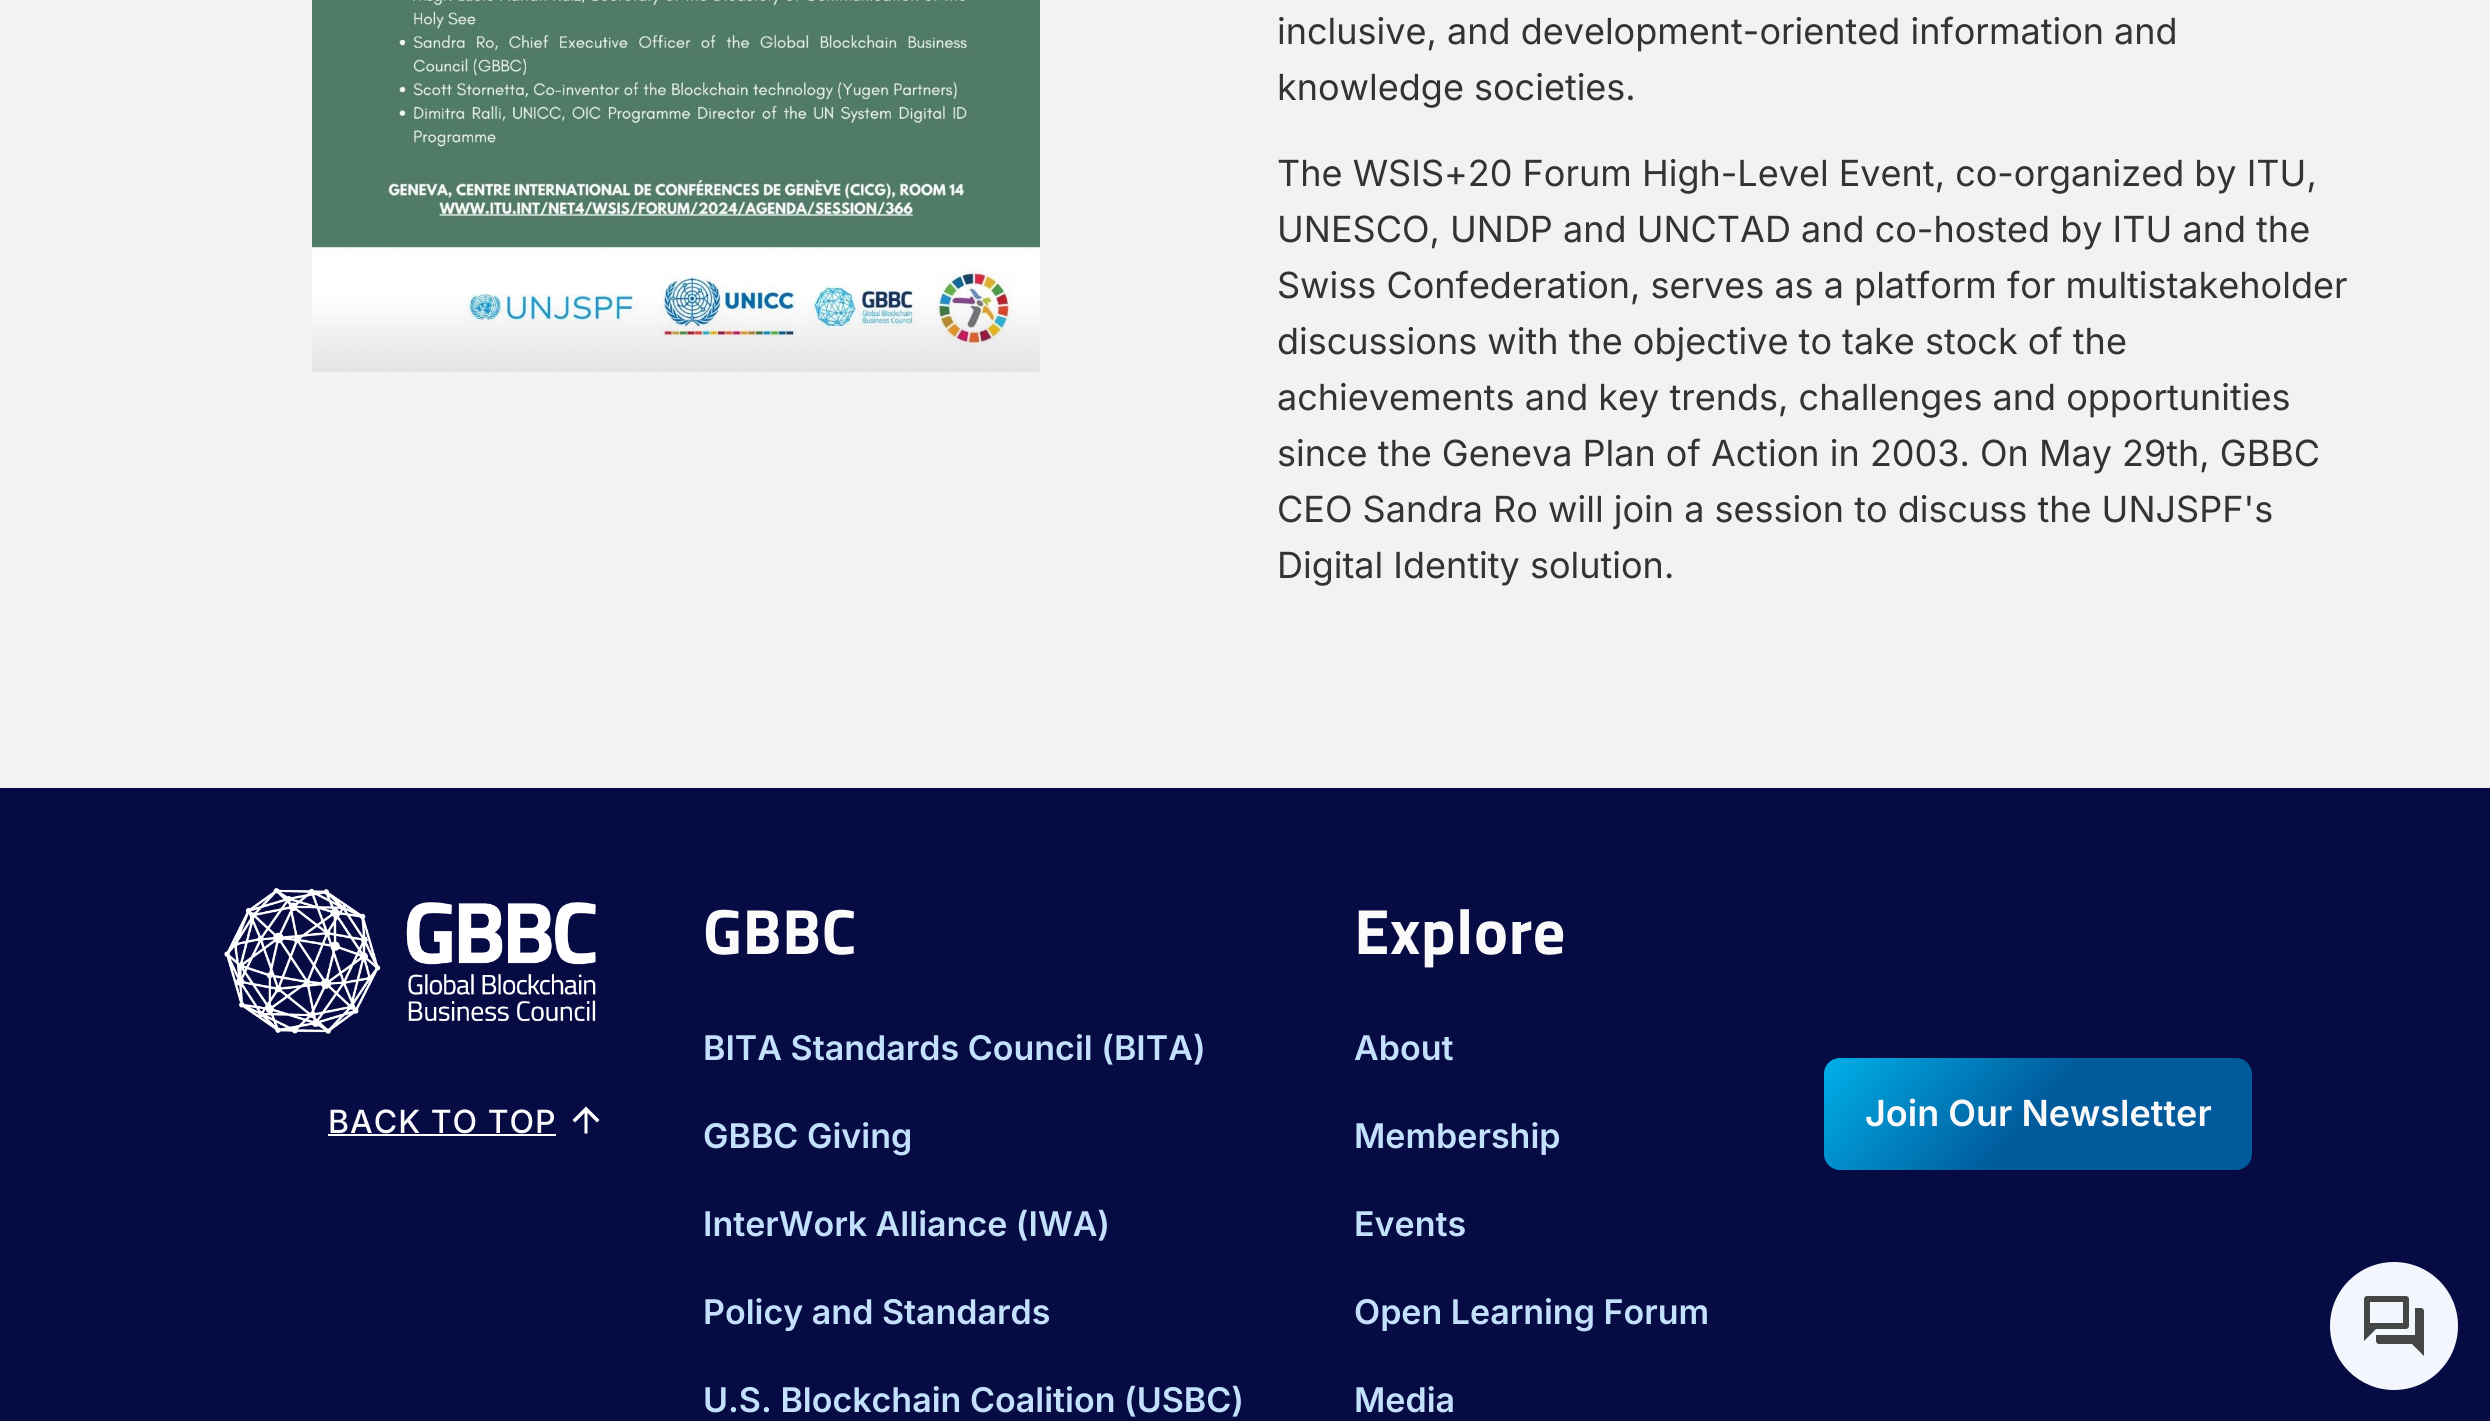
import math
import cairo

surface = cairo.ImageSurface(cairo.Format.RGB24, 2490, 1421)
ctx = cairo.Context(surface)
options = cairo.FontOptions()
options.set_hint_metrics(cairo.HintMetrics.OFF)
options.set_hint_style(cairo.HintStyle.NONE)
ctx.set_font_options(options)
ctx.set_miter_limit(4)


def ink(r, g, b):
    ctx.set_source_rgb(r / 255, g / 255, b / 255)


def write(x, y, s, family, size, color, bold=False, italic=False):
    ctx.select_font_face(family, cairo.FontSlant.ITALIC if italic else cairo.FontSlant.NORMAL, cairo.FontWeight.BOLD if bold else cairo.FontWeight.NORMAL)
    ctx.set_font_size(size)
    ink(*color)
    ctx.move_to(x, y)
    ctx.show_text(s)


def write_spaced(x, y, s, letter, word):
    ctx.move_to(x, y)
    for ch in s:
        ctx.show_text(ch)
        ctx.rel_move_to(letter + word * (ch == ' '), 0)


def block(x, y, w, h, *color):
    ink(*color)
    ctx.rectangle(x, y, w, h)
    ctx.fill()


def round_path(x, y, w, h, r):
    ctx.new_sub_path()
    for i, (u, v) in enumerate([(x + w - r, y + h - r), (x + r, y + h - r), (x + r, y + r), (x + w - r, y + r)]):
        ctx.arc(u, v, r, i * math.pi / 2, (i + 1) * math.pi / 2)
    ctx.close_path()


def paste(path, x, y, w, h):
    ctx.save()
    ctx.set_source_surface(cairo.ImageSurface.create_from_png(path), x, y)
    ctx.rectangle(x, y, w, h)
    ctx.fill()
    ctx.restore()


s1 = dict(family="Inter", size=36, color=(51, 51, 51))
s2 = dict(family="Inter SemiBold", size=34, color=(195, 224, 252))
s3 = dict(family="Inter SemiBold", size=36, color=(250, 250, 250))

ink(242, 242, 242)
ctx.paint()
paste("pic1.png", 312, 0, 728, 372)
write(1277, 44, "inclusive, and development-oriented information and", **s1)
write(1277, 100, "knowledge societies.", **s1)
write(1277, 186, "The WSIS+20 Forum High-Level Event, co-organized by ITU,", **s1)
write(1277, 242, "UNESCO, UNDP and UNCTAD and co-hosted by ITU and the", **s1)
write(1277, 298, "Swiss Confederation, serves as a platform for multistakeholder", **s1)
write(1277, 354, "discussions with the objective to take stock of the", **s1)
write(1277, 410, "achievements and key trends, challenges and opportunities", **s1)
write(1277, 466, "since the Geneva Plan of Action in 2003. On May 29th, GBBC", **s1)
write(1277, 522, "CEO Sandra Ro will join a session to discuss the UNJSPF's", **s1)
write(1277, 578, "Digital Identity solution.", **s1)
block(0, 788, 2490, 633, 6, 11, 67)
paste("pic2.png", 224, 888, 372, 146)
ctx.select_font_face("Inter Medium")
ctx.set_font_size(32)
ink(250, 250, 250)
write_spaced(328, 1133, "BACK TO TOP", 1, 0)
block(328, 1134, 228, 2, 255, 255, 255)
ctx.new_path()
ctx.move_to(572.5, 1120)
ctx.line_to(575, 1122.5)
ctx.line_to(584.5, 1113)
ctx.line_to(584.5, 1133.5)
ctx.line_to(587.5, 1133.5)
ctx.line_to(587.5, 1113)
ctx.line_to(597, 1122.5)
ctx.line_to(599.5, 1120)
ctx.line_to(586, 1106.5)
ctx.close_path()
ctx.fill()
ctx.select_font_face("Titillium Web", cairo.FontSlant.NORMAL, cairo.FontWeight.BOLD)
ctx.set_font_size(64)
ink(250, 250, 250)
write_spaced(703, 954, "GBBC", 0.5, 0)
write(703, 1060, "BITA Standards Council (BITA)", **s2)
write(703, 1148, "GBBC Giving", **s2)
write(703, 1236, "InterWork Alliance (IWA)", **s2)
write(703, 1324, "Policy and Standards", **s2)
write(703, 1412, "U.S. Blockchain Coalition (USBC)", **s2)
ctx.select_font_face("Titillium Web", cairo.FontSlant.NORMAL, cairo.FontWeight.BOLD)
ctx.set_font_size(64)
ink(250, 250, 250)
write_spaced(1354, 954, "Explore", 0.5, 0)
write(1354, 1060, "About", **s2)
write(1354, 1148, "Membership", **s2)
write(1354, 1236, "Events", **s2)
write(1354, 1324, "Open Learning Forum", **s2)
write(1354, 1412, "Media", **s2)
gradient = cairo.LinearGradient(1885, 985, 2191, 1243)
gradient.add_color_stop_rgba(0, 0, 0.69, 0.914, 1)
gradient.add_color_stop_rgba(0.5, 0, 0.353, 0.608, 1)
ctx.set_source(gradient)
round_path(1824, 1058, 428, 112, 16)
ctx.fill()
write(1865, 1126, "Join Our Newsletter", **s3)
ink(243, 246, 252)
ctx.new_path()
ctx.arc(2394, 1326, 64, 0, 2 * math.pi)
ctx.fill()
paste("pic3.png", 2364, 1296, 60, 60)
surface.write_to_png("screenshot.png")
